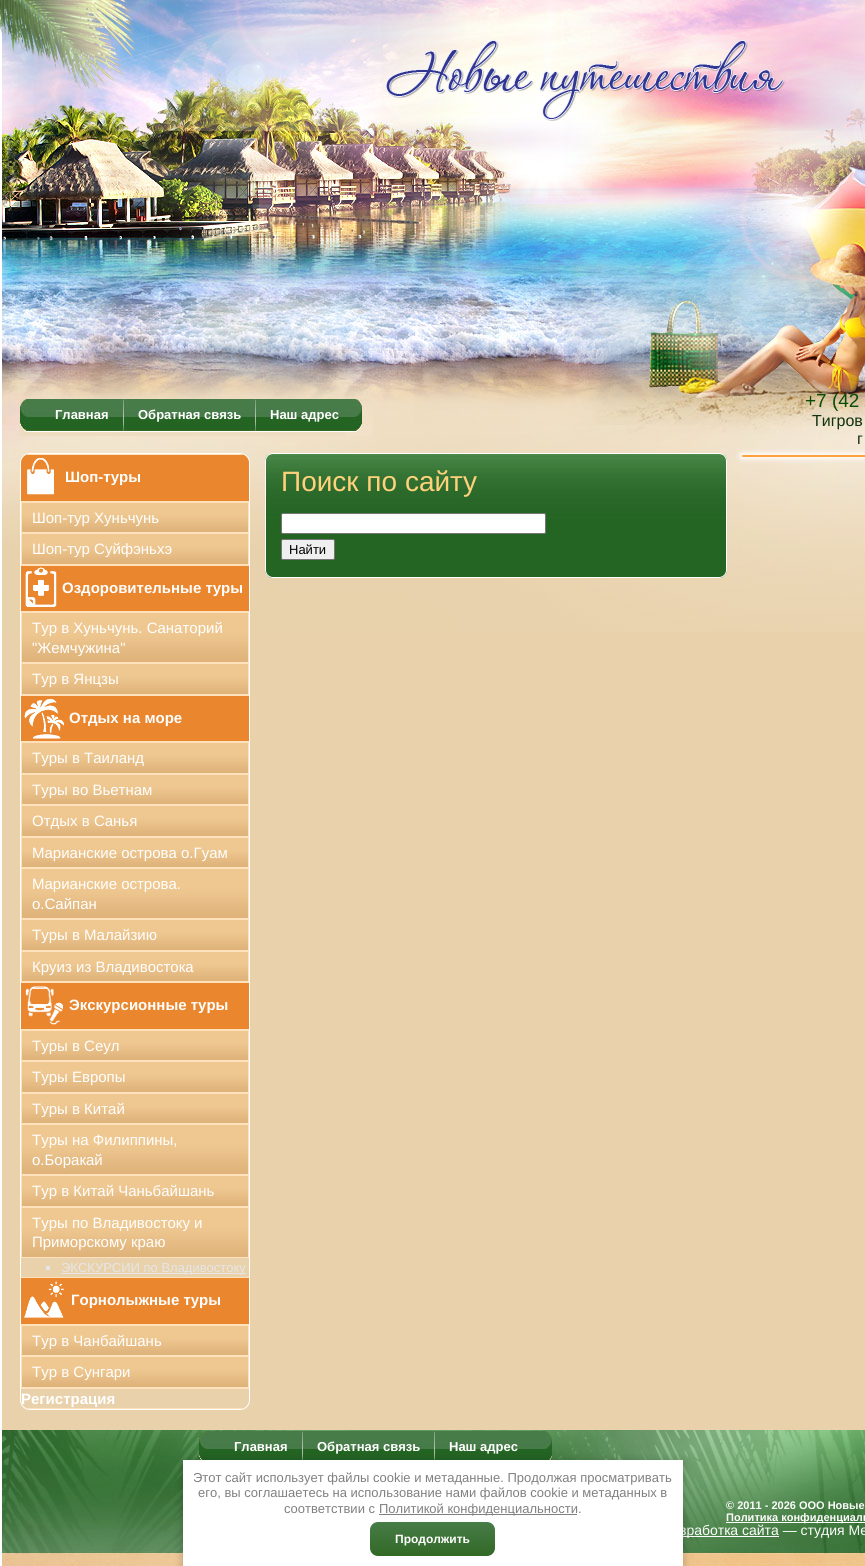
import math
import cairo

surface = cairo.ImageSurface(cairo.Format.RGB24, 865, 1566)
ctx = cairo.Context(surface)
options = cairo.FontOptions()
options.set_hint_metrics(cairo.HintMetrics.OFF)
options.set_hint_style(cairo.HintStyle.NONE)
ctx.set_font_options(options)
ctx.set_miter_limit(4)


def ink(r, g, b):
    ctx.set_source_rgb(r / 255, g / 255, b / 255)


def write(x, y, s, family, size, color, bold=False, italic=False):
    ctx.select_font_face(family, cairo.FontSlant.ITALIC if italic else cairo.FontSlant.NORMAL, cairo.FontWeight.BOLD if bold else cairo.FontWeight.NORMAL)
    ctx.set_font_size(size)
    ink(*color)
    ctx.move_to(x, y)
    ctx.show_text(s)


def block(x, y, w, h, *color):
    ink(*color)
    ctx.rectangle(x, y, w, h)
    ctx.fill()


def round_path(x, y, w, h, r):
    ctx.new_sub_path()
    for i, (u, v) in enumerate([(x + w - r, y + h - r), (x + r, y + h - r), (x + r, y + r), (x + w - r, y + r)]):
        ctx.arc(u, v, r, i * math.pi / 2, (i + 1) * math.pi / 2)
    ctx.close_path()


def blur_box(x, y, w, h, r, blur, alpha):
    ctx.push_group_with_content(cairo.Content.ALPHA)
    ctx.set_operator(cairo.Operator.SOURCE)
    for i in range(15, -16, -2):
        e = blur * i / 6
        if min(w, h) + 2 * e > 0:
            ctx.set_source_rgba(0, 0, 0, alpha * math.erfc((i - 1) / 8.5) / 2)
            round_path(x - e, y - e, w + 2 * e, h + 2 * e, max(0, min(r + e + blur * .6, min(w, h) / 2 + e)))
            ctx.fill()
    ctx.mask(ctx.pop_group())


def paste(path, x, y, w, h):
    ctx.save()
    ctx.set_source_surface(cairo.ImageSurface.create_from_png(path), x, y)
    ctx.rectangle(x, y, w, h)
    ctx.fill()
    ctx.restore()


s1 = dict(family="Liberation Sans", size=13, color=(255, 255, 255), bold=True)
s2 = dict(family="Liberation Sans", size=19, color=(8, 76, 7))
s3 = dict(family="Liberation Sans", size=16, color=(15, 51, 14))
s4 = dict(family="Liberation Sans", size=15, color=(255, 255, 255), bold=True)
s5 = dict(family="Liberation Sans", size=15, color=(255, 255, 255))
s6 = dict(family="Liberation Sans", size=13, color=(230, 230, 230))
s7 = dict(family="Liberation Sans", size=28, color=(255, 209, 122))
s8 = dict(family="Liberation Sans", size=13, color=(0, 0, 0))
s9 = dict(family="Liberation Sans", size=11, color=(255, 255, 255), bold=True)
s10 = dict(family="Liberation Sans", size=14, color=(255, 255, 255))
s11 = dict(family="Liberation Sans", size=13, color=(128, 128, 128))
s12 = dict(family="Liberation Sans", size=12, color=(255, 255, 255), bold=True)

ink(232, 209, 171)
ctx.paint()
paste("pic1.png", 2, 0, 863, 632)
block(0, 12, 2, 1554, 255, 255, 255)
paste("pic2.png", 0, 0, 136, 90)
paste("pic3.png", 385, 40, 400, 81)
paste("pic4.png", 28, 399, 317, 37)
paste("pic5.png", 20, 399, 8, 37)
paste("pic6.png", 345, 399, 28, 37)
write(55, 419, "Главная", **s1)
paste("pic7.png", 123, 399, 1, 32)
write(138, 419, "Обратная связь", **s1)
paste("pic7.png", 255, 399, 1, 32)
write(270, 419, "Наш адрес", **s1)
write(805, 407, "+7 (42", **s2)
write(812, 426, "Тигров", **s3)
write(857, 444, "г", **s3)
ink(255, 255, 255)
blur_box(740, 453, 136, 6, 3, 2.5, 1)
ink(255, 162, 61)
round_path(742, 455, 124, 2, 1)
ctx.fill()
round_path(20.5, 453.5, 229, 956, 9.5)
ink(255, 255, 255)
ctx.set_line_width(1)
ctx.stroke()
ink(234, 134, 45)
ctx.new_path()
ctx.move_to(30, 454)
ctx.line_to(240, 454)
ctx.curve_to(245, 454, 249, 458, 249, 463)
ctx.line_to(249, 502)
ctx.line_to(21, 502)
ctx.line_to(21, 463)
ctx.curve_to(21, 458, 25, 454, 30, 454)
ctx.close_path()
ctx.fill()
paste("pic8.png", 27, 458, 27, 37)
ctx.save()
round_path(21, 454, 228, 955, 9)
ctx.clip()
block(21, 454, 228, 1, 255, 225, 187)
ctx.restore()
block(21, 501, 228, 1, 255, 225, 187)
write(65, 482, "Шоп-туры", **s4)
gradient = cairo.LinearGradient(135, 503, 135, 532)
gradient.add_color_stop_rgba(0.38, 0.937, 0.784, 0.569, 1)
gradient.add_color_stop_rgba(1, 0.871, 0.698, 0.475, 1)
ctx.set_source(gradient)
ctx.rectangle(22, 503, 226, 29)
ctx.fill()
ctx.rectangle(21.5, 502.5, 227, 30)
ink(255, 225, 187)
ctx.stroke()
write(32, 523, "Шоп-тур Хуньчунь", **s5)
gradient = cairo.LinearGradient(135, 534, 135, 564)
gradient.add_color_stop_rgba(0.38, 0.937, 0.784, 0.569, 1)
gradient.add_color_stop_rgba(1, 0.871, 0.698, 0.475, 1)
ctx.set_source(gradient)
ctx.rectangle(22, 534, 226, 30)
ctx.fill()
ctx.rectangle(21.5, 533.5, 227, 31)
ink(255, 225, 187)
ctx.stroke()
write(32, 554, "Шоп-тур Суйфэньхэ", **s5)
block(21, 566, 228, 45, 234, 134, 45)
paste("pic9.png", 25, 567, 32, 40)
block(21, 565, 228, 1, 255, 225, 187)
block(21, 611, 228, 1, 255, 225, 187)
write(62, 593, "Оздоровительные туры", **s4)
gradient = cairo.LinearGradient(135, 613, 135, 662)
gradient.add_color_stop_rgba(0.38, 0.937, 0.784, 0.569, 1)
gradient.add_color_stop_rgba(1, 0.871, 0.698, 0.475, 1)
ctx.set_source(gradient)
ctx.rectangle(22, 613, 226, 49)
ctx.fill()
ctx.rectangle(21.5, 612.5, 227, 50)
ink(255, 225, 187)
ctx.stroke()
write(32, 633, "Тур в Хуньчунь. Санаторий", **s5)
write(32, 653, "\"Жемчужина\"", **s5)
gradient = cairo.LinearGradient(135, 664, 135, 694)
gradient.add_color_stop_rgba(0.38, 0.937, 0.784, 0.569, 1)
gradient.add_color_stop_rgba(1, 0.871, 0.698, 0.475, 1)
ctx.set_source(gradient)
ctx.rectangle(22, 664, 226, 30)
ctx.fill()
ctx.rectangle(21.5, 663.5, 227, 31)
ink(255, 225, 187)
ctx.stroke()
write(32, 684, "Тур в Янцзы", **s5)
block(21, 696, 228, 45, 234, 134, 45)
paste("pic10.png", 24, 699, 40, 40)
block(21, 695, 228, 1, 255, 225, 187)
block(21, 741, 228, 1, 255, 225, 187)
write(69, 723, "Отдых на море", **s4)
gradient = cairo.LinearGradient(135, 743, 135, 773)
gradient.add_color_stop_rgba(0.38, 0.937, 0.784, 0.569, 1)
gradient.add_color_stop_rgba(1, 0.871, 0.698, 0.475, 1)
ctx.set_source(gradient)
ctx.rectangle(22, 743, 226, 30)
ctx.fill()
ctx.rectangle(21.5, 742.5, 227, 31)
ink(255, 225, 187)
ctx.stroke()
write(32, 763, "Туры в Таиланд", **s5)
gradient = cairo.LinearGradient(135, 775, 135, 804)
gradient.add_color_stop_rgba(0.38, 0.937, 0.784, 0.569, 1)
gradient.add_color_stop_rgba(1, 0.871, 0.698, 0.475, 1)
ctx.set_source(gradient)
ctx.rectangle(22, 775, 226, 29)
ctx.fill()
ctx.rectangle(21.5, 774.5, 227, 30)
ink(255, 225, 187)
ctx.stroke()
write(32, 795, "Туры во Вьетнам", **s5)
gradient = cairo.LinearGradient(135, 806, 135, 836)
gradient.add_color_stop_rgba(0.38, 0.937, 0.784, 0.569, 1)
gradient.add_color_stop_rgba(1, 0.871, 0.698, 0.475, 1)
ctx.set_source(gradient)
ctx.rectangle(22, 806, 226, 30)
ctx.fill()
ctx.rectangle(21.5, 805.5, 227, 31)
ink(255, 225, 187)
ctx.stroke()
write(32, 826, "Отдых в Санья", **s5)
gradient = cairo.LinearGradient(135, 838, 135, 867)
gradient.add_color_stop_rgba(0.38, 0.937, 0.784, 0.569, 1)
gradient.add_color_stop_rgba(1, 0.871, 0.698, 0.475, 1)
ctx.set_source(gradient)
ctx.rectangle(22, 838, 226, 29)
ctx.fill()
ctx.rectangle(21.5, 837.5, 227, 30)
ink(255, 225, 187)
ctx.stroke()
write(32, 858, "Марианские острова о.Гуам", **s5)
gradient = cairo.LinearGradient(135, 869, 135, 918)
gradient.add_color_stop_rgba(0.38, 0.937, 0.784, 0.569, 1)
gradient.add_color_stop_rgba(1, 0.871, 0.698, 0.475, 1)
ctx.set_source(gradient)
ctx.rectangle(22, 869, 226, 49)
ctx.fill()
ctx.rectangle(21.5, 868.5, 227, 50)
ink(255, 225, 187)
ctx.stroke()
write(32, 889, "Марианские острова.", **s5)
write(32, 909, "о.Сайпан", **s5)
gradient = cairo.LinearGradient(135, 920, 135, 950)
gradient.add_color_stop_rgba(0.38, 0.937, 0.784, 0.569, 1)
gradient.add_color_stop_rgba(1, 0.871, 0.698, 0.475, 1)
ctx.set_source(gradient)
ctx.rectangle(22, 920, 226, 30)
ctx.fill()
ctx.rectangle(21.5, 919.5, 227, 31)
ink(255, 225, 187)
ctx.stroke()
write(32, 940, "Туры в Малайзию", **s5)
gradient = cairo.LinearGradient(135, 952, 135, 981)
gradient.add_color_stop_rgba(0.38, 0.937, 0.784, 0.569, 1)
gradient.add_color_stop_rgba(1, 0.871, 0.698, 0.475, 1)
ctx.set_source(gradient)
ctx.rectangle(22, 952, 226, 29)
ctx.fill()
ctx.rectangle(21.5, 951.5, 227, 30)
ink(255, 225, 187)
ctx.stroke()
write(32, 972, "Круиз из Владивостока", **s5)
block(21, 983, 228, 46, 234, 134, 45)
paste("pic11.png", 25, 986, 38, 39)
block(21, 982, 228, 1, 255, 225, 187)
block(21, 1029, 228, 1, 255, 225, 187)
write(69, 1010, "Экскурсионные туры", **s4)
gradient = cairo.LinearGradient(135, 1031, 135, 1060)
gradient.add_color_stop_rgba(0.38, 0.937, 0.784, 0.569, 1)
gradient.add_color_stop_rgba(1, 0.871, 0.698, 0.475, 1)
ctx.set_source(gradient)
ctx.rectangle(22, 1031, 226, 29)
ctx.fill()
ctx.rectangle(21.5, 1030.5, 227, 30)
ink(255, 225, 187)
ctx.stroke()
write(32, 1051, "Туры в Сеул", **s5)
gradient = cairo.LinearGradient(135, 1062, 135, 1092)
gradient.add_color_stop_rgba(0.38, 0.937, 0.784, 0.569, 1)
gradient.add_color_stop_rgba(1, 0.871, 0.698, 0.475, 1)
ctx.set_source(gradient)
ctx.rectangle(22, 1062, 226, 30)
ctx.fill()
ctx.rectangle(21.5, 1061.5, 227, 31)
ink(255, 225, 187)
ctx.stroke()
write(32, 1082, "Туры Европы", **s5)
gradient = cairo.LinearGradient(135, 1094, 135, 1123)
gradient.add_color_stop_rgba(0.38, 0.937, 0.784, 0.569, 1)
gradient.add_color_stop_rgba(1, 0.871, 0.698, 0.475, 1)
ctx.set_source(gradient)
ctx.rectangle(22, 1094, 226, 29)
ctx.fill()
ctx.rectangle(21.5, 1093.5, 227, 30)
ink(255, 225, 187)
ctx.stroke()
write(32, 1114, "Туры в Китай", **s5)
gradient = cairo.LinearGradient(135, 1125, 135, 1174)
gradient.add_color_stop_rgba(0.38, 0.937, 0.784, 0.569, 1)
gradient.add_color_stop_rgba(1, 0.871, 0.698, 0.475, 1)
ctx.set_source(gradient)
ctx.rectangle(22, 1125, 226, 49)
ctx.fill()
ctx.rectangle(21.5, 1124.5, 227, 50)
ink(255, 225, 187)
ctx.stroke()
write(32, 1145, "Туры на Филиппины,", **s5)
write(32, 1165, "о.Боракай", **s5)
gradient = cairo.LinearGradient(135, 1176, 135, 1206)
gradient.add_color_stop_rgba(0.38, 0.937, 0.784, 0.569, 1)
gradient.add_color_stop_rgba(1, 0.871, 0.698, 0.475, 1)
ctx.set_source(gradient)
ctx.rectangle(22, 1176, 226, 30)
ctx.fill()
ctx.rectangle(21.5, 1175.5, 227, 31)
ink(255, 225, 187)
ctx.stroke()
write(32, 1196, "Тур в Китай Чаньбайшань", **s5)
gradient = cairo.LinearGradient(135, 1208, 135, 1257)
gradient.add_color_stop_rgba(0.38, 0.937, 0.784, 0.569, 1)
gradient.add_color_stop_rgba(1, 0.871, 0.698, 0.475, 1)
ctx.set_source(gradient)
ctx.rectangle(22, 1208, 226, 49)
ctx.fill()
ctx.rectangle(21.5, 1207.5, 227, 50)
ink(255, 225, 187)
ctx.stroke()
write(32, 1228, "Туры по Владивостоку и", **s5)
write(32, 1247, "Приморскому краю", **s5)
block(46, 1266, 4, 4, 230, 230, 230)
block(61, 1273, 185, 1, 230, 230, 230)
write(61, 1272, "ЭКСКУРСИИ по Владивостоку", **s6)
block(21, 1278, 228, 46, 234, 134, 45)
paste("pic12.png", 24, 1281, 40, 37)
block(21, 1277, 228, 1, 255, 225, 187)
block(21, 1324, 228, 1, 255, 225, 187)
write(71, 1305, "Горнолыжные туры", **s4)
gradient = cairo.LinearGradient(135, 1326, 135, 1355)
gradient.add_color_stop_rgba(0.38, 0.937, 0.784, 0.569, 1)
gradient.add_color_stop_rgba(1, 0.871, 0.698, 0.475, 1)
ctx.set_source(gradient)
ctx.rectangle(22, 1326, 226, 29)
ctx.fill()
ctx.rectangle(21.5, 1325.5, 227, 30)
ink(255, 225, 187)
ctx.stroke()
write(32, 1346, "Тур в Чанбайшань", **s5)
gradient = cairo.LinearGradient(135, 1357, 135, 1387)
gradient.add_color_stop_rgba(0.38, 0.937, 0.784, 0.569, 1)
gradient.add_color_stop_rgba(1, 0.871, 0.698, 0.475, 1)
ctx.set_source(gradient)
ctx.rectangle(22, 1357, 226, 30)
ctx.fill()
ctx.rectangle(21.5, 1356.5, 227, 31)
ink(255, 225, 187)
ctx.stroke()
write(32, 1377, "Тур в Сунгари", **s5)
block(21, 1388, 228, 1, 255, 225, 187)
ctx.save()
round_path(21, 454, 228, 955, 9)
ctx.clip()
block(21, 1408, 228, 1, 255, 225, 187)
ctx.restore()
write(21, 1404, "Регистрация", **s4)
paste("pic13.png", 265, 454, 462, 124)
round_path(265.5, 453.5, 461, 124, 7.5)
ctx.stroke()
write(281, 491, "Поиск по сайту", **s7)
ink(255, 255, 255)
round_path(281.5, 513.5, 264, 20, 1.5)
ctx.fill_preserve()
ink(118, 118, 118)
ctx.stroke()
ink(239, 239, 239)
round_path(281.5, 539.5, 53, 20, 1.5)
ctx.fill_preserve()
ink(118, 118, 118)
ctx.stroke()
write(289, 554, "Найти", **s8)
paste("pic14.png", 2, 1430, 863, 136)
paste("pic15.png", 2, 1430, 345, 124)
write(726, 1509, "© 2011 - 2026 ООО Новые", **s9)
block(726, 1522, 139, 1, 255, 255, 255)
write(726, 1521, "Политика конфиденциаль", **s9)
block(683, 1536, 96, 1, 255, 255, 255)
write(680, 1535, "зработка сайта — студия Ме", **s10)
paste("pic16.png", 426, 1430, 439, 124)
paste("pic17.png", 199, 1431, 353, 29)
paste("pic18.png", 199, 1431, 8, 29)
paste("pic19.png", 544, 1431, 8, 29)
write(234, 1451, "Главная", **s1)
paste("pic20.png", 302, 1431, 1, 29)
write(317, 1451, "Обратная связь", **s1)
paste("pic20.png", 434, 1431, 1, 29)
write(449, 1451, "Наш адрес", **s1)
ink(0, 0, 0)
blur_box(183, 1461, 500, 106, 0, 5, 0.23)
block(183, 1460, 500, 106, 255, 255, 255)
write(193, 1482, "Этот сайт использует файлы cookie и метаданные. Продолжая просматривать", **s11)
write(198, 1497, "его, вы соглашаетесь на использование нами файлов cookie и метаданных в", **s11)
write(284, 1513, "соответствии с", **s11)
block(379, 1514, 198, 1, 128, 128, 128)
write(379, 1513, "Политикой конфиденциальности.", **s11)
gradient = cairo.LinearGradient(433, 1522, 433, 1556)
gradient.add_color_stop_rgba(0, 0.278, 0.486, 0.282, 1)
gradient.add_color_stop_rgba(1, 0.196, 0.412, 0.145, 1)
ctx.set_source(gradient)
round_path(370, 1522, 125, 34, 8)
ctx.fill()
write(395, 1543, "Продолжить", **s12)
surface.write_to_png("screenshot.png")
